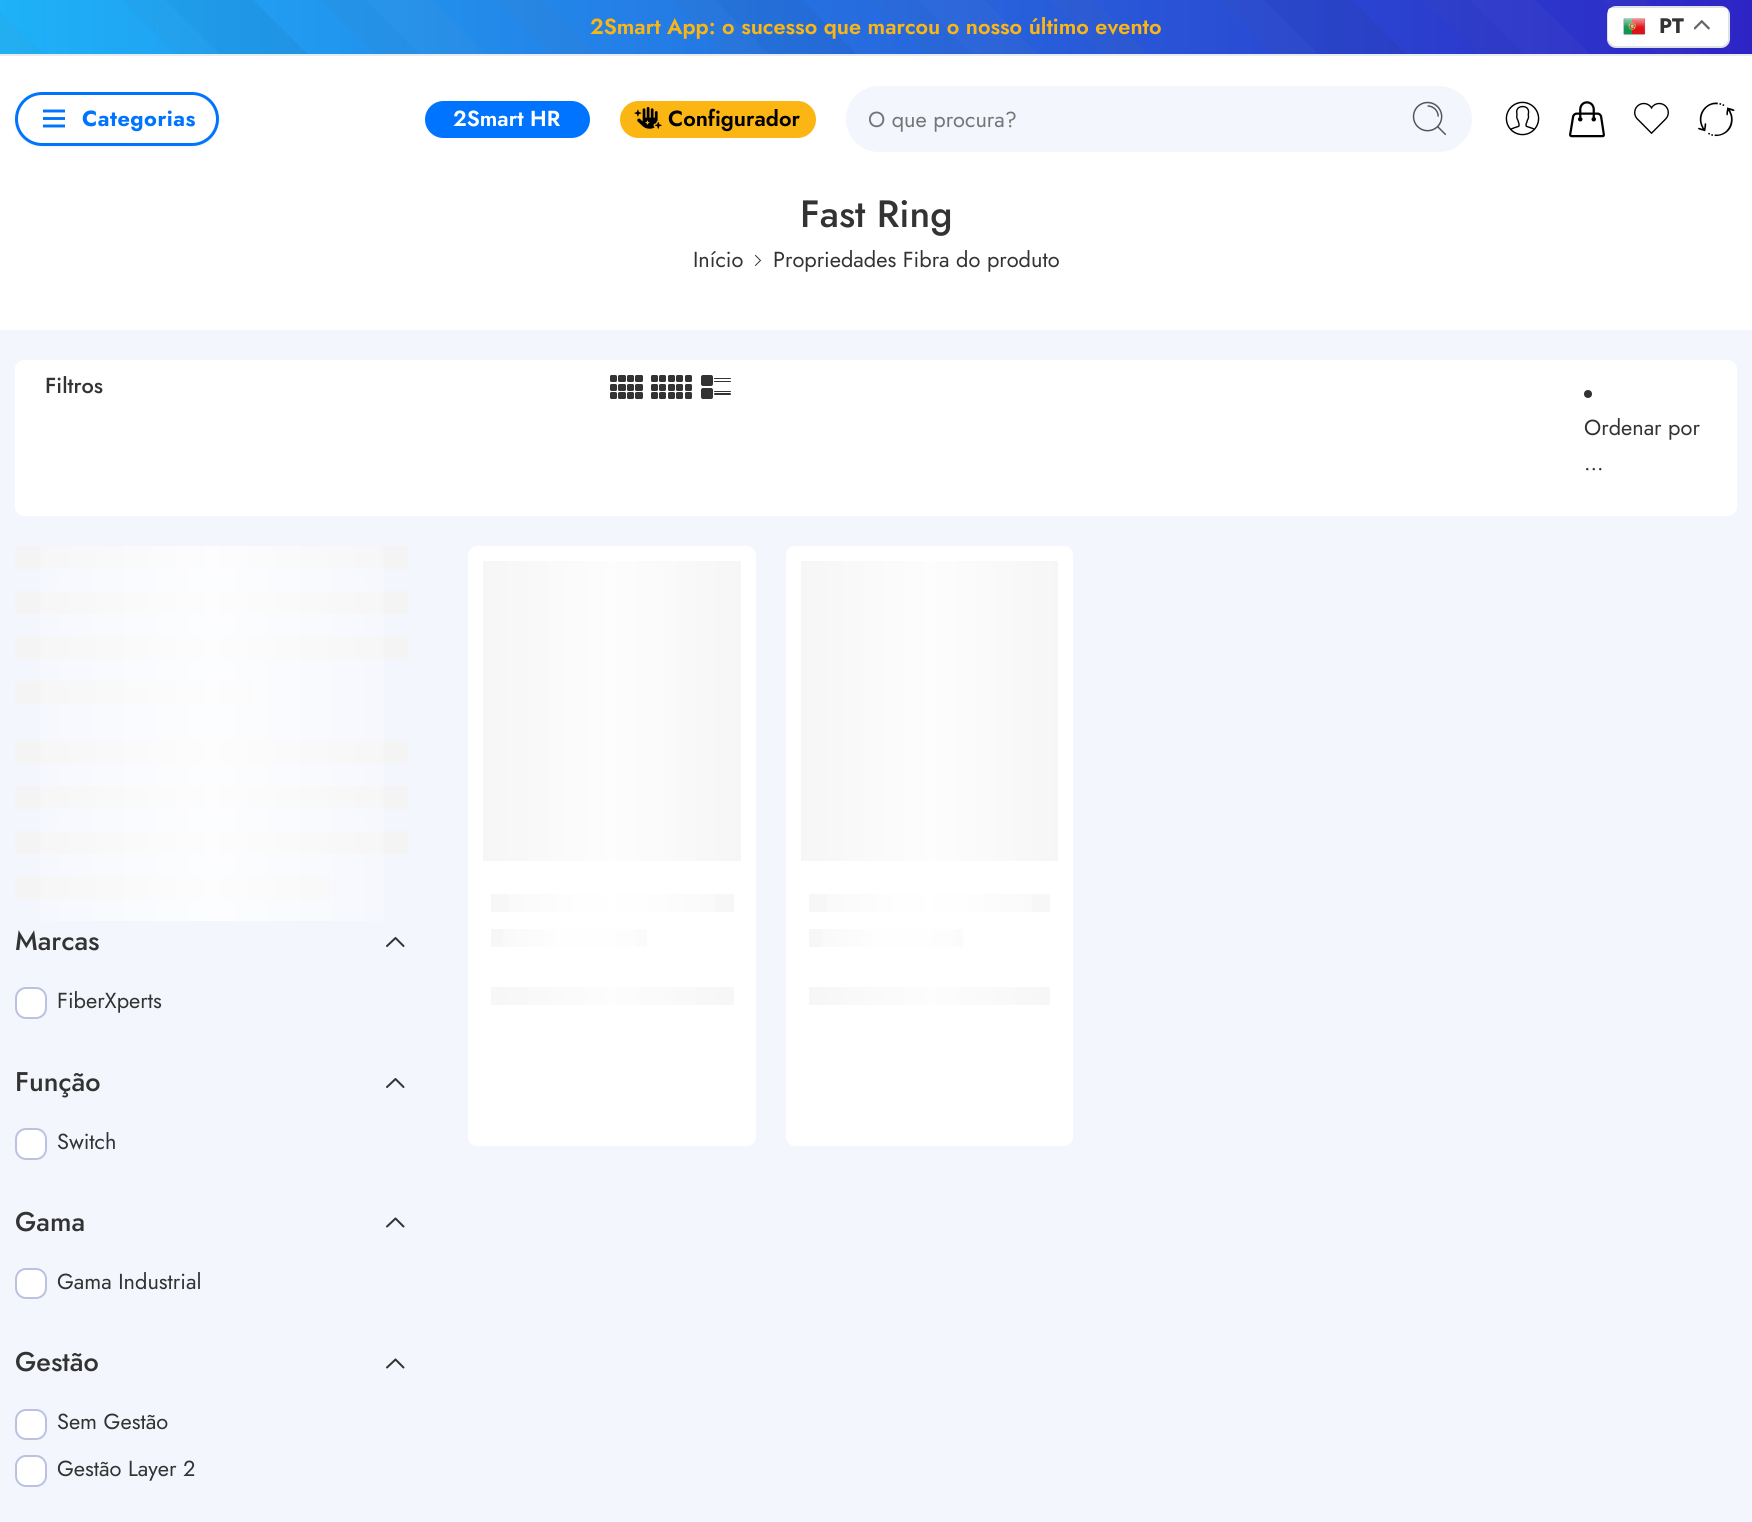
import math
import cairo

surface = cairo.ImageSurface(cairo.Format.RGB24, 1752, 1522)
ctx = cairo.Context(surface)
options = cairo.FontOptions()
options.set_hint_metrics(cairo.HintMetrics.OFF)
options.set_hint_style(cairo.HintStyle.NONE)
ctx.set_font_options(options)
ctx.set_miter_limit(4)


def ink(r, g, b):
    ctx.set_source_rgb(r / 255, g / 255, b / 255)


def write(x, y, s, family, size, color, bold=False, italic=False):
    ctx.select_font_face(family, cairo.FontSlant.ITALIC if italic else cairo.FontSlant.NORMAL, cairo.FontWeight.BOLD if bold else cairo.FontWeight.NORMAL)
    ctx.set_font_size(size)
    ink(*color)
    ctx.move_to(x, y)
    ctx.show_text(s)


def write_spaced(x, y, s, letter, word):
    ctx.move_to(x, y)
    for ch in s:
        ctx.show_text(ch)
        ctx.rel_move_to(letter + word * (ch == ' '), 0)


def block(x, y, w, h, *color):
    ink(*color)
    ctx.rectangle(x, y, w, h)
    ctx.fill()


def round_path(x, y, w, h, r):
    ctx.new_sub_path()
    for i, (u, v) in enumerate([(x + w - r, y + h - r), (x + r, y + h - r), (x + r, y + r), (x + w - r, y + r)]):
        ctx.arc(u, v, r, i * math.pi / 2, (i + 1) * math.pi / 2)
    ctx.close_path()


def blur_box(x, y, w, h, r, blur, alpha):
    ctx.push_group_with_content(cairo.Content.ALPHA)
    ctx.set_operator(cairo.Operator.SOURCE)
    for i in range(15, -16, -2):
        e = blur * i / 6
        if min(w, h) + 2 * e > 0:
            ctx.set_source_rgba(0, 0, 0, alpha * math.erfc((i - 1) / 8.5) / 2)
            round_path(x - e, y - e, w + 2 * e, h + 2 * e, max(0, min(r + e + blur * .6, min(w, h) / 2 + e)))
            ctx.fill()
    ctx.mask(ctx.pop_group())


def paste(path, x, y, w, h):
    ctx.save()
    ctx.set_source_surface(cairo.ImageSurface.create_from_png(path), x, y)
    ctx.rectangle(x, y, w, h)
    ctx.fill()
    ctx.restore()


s1 = dict(family="Jost SemiBold", size=21.75, color=(251, 182, 20))
s2 = dict(family="Jost SemiBold", size=21.75, color=(255, 255, 255))
s3 = dict(family="Jost SemiBold", size=21.75, color=(0, 0, 0))
s4 = dict(family="Jost", size=21.75, color=(117, 117, 117))
s5 = dict(family="Jost Medium", size=38, color=(51, 51, 51))
s6 = dict(family="Jost", size=21.75, color=(51, 51, 51))
s7 = dict(family="Jost Medium", size=21.75, color=(51, 51, 51))
s8 = dict(family="Jost Medium", size=27, color=(51, 51, 51))
s9 = dict(family="Jost", size=21, color=(51, 51, 51), bold=True)

ink(255, 255, 255)
ctx.paint()
gradient = cairo.LinearGradient(0, 27, 1752, 27)
gradient.add_color_stop_rgba(0, 0.118, 0.698, 0.973, 1)
gradient.add_color_stop_rgba(1, 0.18, 0.141, 0.773, 1)
ctx.set_source(gradient)
ctx.rectangle(0, 0, 1752, 54)
ctx.fill()
gradient = cairo.LinearGradient(425, 479, 1523, -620)
gradient.add_color_stop_rgba(0, 0.275, 0.275, 0.275, 0)
gradient.add_color_stop_rgba(0.04, 0.275, 0.275, 0.275, 0)
gradient.add_color_stop_rgba(0.04, 0.863, 0.863, 0.863, 0)
gradient.add_color_stop_rgba(0.08, 0.373, 0.373, 0.373, 0)
gradient.add_color_stop_rgba(0.08, 0.373, 0.373, 0.373, 0.05)
gradient.add_color_stop_rgba(0.1, 0.373, 0.373, 0.373, 0.05)
gradient.add_color_stop_rgba(0.1, 0.059, 0.059, 0.059, 0.05)
gradient.add_color_stop_rgba(0.14, 0.059, 0.059, 0.059, 0.05)
gradient.add_color_stop_rgba(0.14, 0.059, 0.059, 0.059, 0)
gradient.add_color_stop_rgba(0.18, 0.2, 0.2, 0.2, 0)
gradient.add_color_stop_rgba(0.18, 0.882, 0.882, 0.882, 0)
gradient.add_color_stop_rgba(0.19, 0.882, 0.882, 0.882, 0)
gradient.add_color_stop_rgba(0.19, 0.235, 0.235, 0.235, 0)
gradient.add_color_stop_rgba(0.23, 0.235, 0.235, 0.235, 0)
gradient.add_color_stop_rgba(0.23, 0.263, 0.263, 0.263, 0)
gradient.add_color_stop_rgba(0.25, 0.263, 0.263, 0.263, 0)
gradient.add_color_stop_rgba(0.25, 0.275, 0.275, 0.275, 0)
gradient.add_color_stop_rgba(0.29, 0.275, 0.275, 0.275, 0)
gradient.add_color_stop_rgba(0.29, 0.863, 0.863, 0.863, 0)
gradient.add_color_stop_rgba(0.33, 0.373, 0.373, 0.373, 0)
gradient.add_color_stop_rgba(0.33, 0.373, 0.373, 0.373, 0.05)
gradient.add_color_stop_rgba(0.35, 0.373, 0.373, 0.373, 0.05)
gradient.add_color_stop_rgba(0.35, 0.059, 0.059, 0.059, 0.05)
gradient.add_color_stop_rgba(0.39, 0.059, 0.059, 0.059, 0.05)
gradient.add_color_stop_rgba(0.39, 0.059, 0.059, 0.059, 0)
gradient.add_color_stop_rgba(0.43, 0.2, 0.2, 0.2, 0)
gradient.add_color_stop_rgba(0.43, 0.882, 0.882, 0.882, 0)
gradient.add_color_stop_rgba(0.44, 0.882, 0.882, 0.882, 0)
gradient.add_color_stop_rgba(0.44, 0.235, 0.235, 0.235, 0)
gradient.add_color_stop_rgba(0.48, 0.235, 0.235, 0.235, 0)
gradient.add_color_stop_rgba(0.48, 0.263, 0.263, 0.263, 0)
gradient.add_color_stop_rgba(0.5, 0.263, 0.263, 0.263, 0)
gradient.add_color_stop_rgba(0.5, 0.275, 0.275, 0.275, 0)
gradient.add_color_stop_rgba(0.54, 0.275, 0.275, 0.275, 0)
gradient.add_color_stop_rgba(0.54, 0.863, 0.863, 0.863, 0)
gradient.add_color_stop_rgba(0.58, 0.373, 0.373, 0.373, 0)
gradient.add_color_stop_rgba(0.58, 0.373, 0.373, 0.373, 0.05)
gradient.add_color_stop_rgba(0.6, 0.373, 0.373, 0.373, 0.05)
gradient.add_color_stop_rgba(0.6, 0.059, 0.059, 0.059, 0.05)
gradient.add_color_stop_rgba(0.64, 0.059, 0.059, 0.059, 0.05)
gradient.add_color_stop_rgba(0.64, 0.059, 0.059, 0.059, 0)
gradient.add_color_stop_rgba(0.68, 0.2, 0.2, 0.2, 0)
gradient.add_color_stop_rgba(0.68, 0.882, 0.882, 0.882, 0)
gradient.add_color_stop_rgba(0.69, 0.882, 0.882, 0.882, 0)
gradient.add_color_stop_rgba(0.69, 0.235, 0.235, 0.235, 0)
gradient.add_color_stop_rgba(0.73, 0.235, 0.235, 0.235, 0)
gradient.add_color_stop_rgba(0.73, 0.263, 0.263, 0.263, 0)
gradient.add_color_stop_rgba(0.75, 0.263, 0.263, 0.263, 0)
gradient.add_color_stop_rgba(0.75, 0.275, 0.275, 0.275, 0)
gradient.add_color_stop_rgba(0.79, 0.275, 0.275, 0.275, 0)
gradient.add_color_stop_rgba(0.79, 0.863, 0.863, 0.863, 0)
gradient.add_color_stop_rgba(0.83, 0.373, 0.373, 0.373, 0)
gradient.add_color_stop_rgba(0.83, 0.373, 0.373, 0.373, 0.05)
gradient.add_color_stop_rgba(0.85, 0.373, 0.373, 0.373, 0.05)
gradient.add_color_stop_rgba(0.85, 0.059, 0.059, 0.059, 0.05)
gradient.add_color_stop_rgba(0.89, 0.059, 0.059, 0.059, 0.05)
gradient.add_color_stop_rgba(0.89, 0.059, 0.059, 0.059, 0)
gradient.add_color_stop_rgba(0.93, 0.2, 0.2, 0.2, 0)
gradient.add_color_stop_rgba(0.93, 0.882, 0.882, 0.882, 0)
gradient.add_color_stop_rgba(0.94, 0.882, 0.882, 0.882, 0)
gradient.add_color_stop_rgba(0.94, 0.235, 0.235, 0.235, 0)
gradient.add_color_stop_rgba(0.98, 0.235, 0.235, 0.235, 0)
gradient.add_color_stop_rgba(0.98, 0.263, 0.263, 0.263, 0)
gradient.add_color_stop_rgba(1, 0.263, 0.263, 0.263, 0)
ctx.set_source(gradient)
ctx.rectangle(122, 0, 1284, 54)
ctx.fill()
gradient = cairo.LinearGradient(425, 479, 1528, -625)
gradient.add_color_stop_rgba(0, 0.463, 0.463, 0.463, 0.05)
gradient.add_color_stop_rgba(0.02, 0.463, 0.463, 0.463, 0.05)
gradient.add_color_stop_rgba(0.02, 0.463, 0.463, 0.463, 0)
gradient.add_color_stop_rgba(0.06, 0.231, 0.231, 0.231, 0)
gradient.add_color_stop_rgba(0.06, 0.765, 0.765, 0.765, 0)
gradient.add_color_stop_rgba(0.08, 0.765, 0.765, 0.765, 0)
gradient.add_color_stop_rgba(0.08, 0.475, 0.475, 0.475, 0)
gradient.add_color_stop_rgba(0.13, 0.475, 0.475, 0.475, 0)
gradient.add_color_stop_rgba(0.13, 0.98, 0.98, 0.98, 0)
gradient.add_color_stop_rgba(0.17, 0.416, 0.416, 0.416, 0)
gradient.add_color_stop_rgba(0.17, 0.416, 0.416, 0.416, 0.05)
gradient.add_color_stop_rgba(0.19, 0.416, 0.416, 0.416, 0.05)
gradient.add_color_stop_rgba(0.19, 0.592, 0.592, 0.592, 0.05)
gradient.add_color_stop_rgba(0.22, 0.592, 0.592, 0.592, 0.05)
gradient.add_color_stop_rgba(0.22, 0.592, 0.592, 0.592, 0)
gradient.add_color_stop_rgba(0.25, 0.463, 0.463, 0.463, 0)
gradient.add_color_stop_rgba(0.25, 0.463, 0.463, 0.463, 0.05)
gradient.add_color_stop_rgba(0.27, 0.463, 0.463, 0.463, 0.05)
gradient.add_color_stop_rgba(0.27, 0.463, 0.463, 0.463, 0)
gradient.add_color_stop_rgba(0.31, 0.231, 0.231, 0.231, 0)
gradient.add_color_stop_rgba(0.31, 0.765, 0.765, 0.765, 0)
gradient.add_color_stop_rgba(0.33, 0.765, 0.765, 0.765, 0)
gradient.add_color_stop_rgba(0.33, 0.475, 0.475, 0.475, 0)
gradient.add_color_stop_rgba(0.38, 0.475, 0.475, 0.475, 0)
gradient.add_color_stop_rgba(0.38, 0.98, 0.98, 0.98, 0)
gradient.add_color_stop_rgba(0.42, 0.416, 0.416, 0.416, 0)
gradient.add_color_stop_rgba(0.42, 0.416, 0.416, 0.416, 0.05)
gradient.add_color_stop_rgba(0.44, 0.416, 0.416, 0.416, 0.05)
gradient.add_color_stop_rgba(0.44, 0.592, 0.592, 0.592, 0.05)
gradient.add_color_stop_rgba(0.47, 0.592, 0.592, 0.592, 0.05)
gradient.add_color_stop_rgba(0.47, 0.592, 0.592, 0.592, 0)
gradient.add_color_stop_rgba(0.5, 0.463, 0.463, 0.463, 0)
gradient.add_color_stop_rgba(0.5, 0.463, 0.463, 0.463, 0.05)
gradient.add_color_stop_rgba(0.52, 0.463, 0.463, 0.463, 0.05)
gradient.add_color_stop_rgba(0.52, 0.463, 0.463, 0.463, 0)
gradient.add_color_stop_rgba(0.56, 0.231, 0.231, 0.231, 0)
gradient.add_color_stop_rgba(0.56, 0.765, 0.765, 0.765, 0)
gradient.add_color_stop_rgba(0.58, 0.765, 0.765, 0.765, 0)
gradient.add_color_stop_rgba(0.58, 0.475, 0.475, 0.475, 0)
gradient.add_color_stop_rgba(0.63, 0.475, 0.475, 0.475, 0)
gradient.add_color_stop_rgba(0.63, 0.98, 0.98, 0.98, 0)
gradient.add_color_stop_rgba(0.67, 0.416, 0.416, 0.416, 0)
gradient.add_color_stop_rgba(0.67, 0.416, 0.416, 0.416, 0.05)
gradient.add_color_stop_rgba(0.69, 0.416, 0.416, 0.416, 0.05)
gradient.add_color_stop_rgba(0.69, 0.592, 0.592, 0.592, 0.05)
gradient.add_color_stop_rgba(0.72, 0.592, 0.592, 0.592, 0.05)
gradient.add_color_stop_rgba(0.72, 0.592, 0.592, 0.592, 0)
gradient.add_color_stop_rgba(0.75, 0.463, 0.463, 0.463, 0)
gradient.add_color_stop_rgba(0.75, 0.463, 0.463, 0.463, 0.05)
gradient.add_color_stop_rgba(0.77, 0.463, 0.463, 0.463, 0.05)
gradient.add_color_stop_rgba(0.77, 0.463, 0.463, 0.463, 0)
gradient.add_color_stop_rgba(0.81, 0.231, 0.231, 0.231, 0)
gradient.add_color_stop_rgba(0.81, 0.765, 0.765, 0.765, 0)
gradient.add_color_stop_rgba(0.83, 0.765, 0.765, 0.765, 0)
gradient.add_color_stop_rgba(0.83, 0.475, 0.475, 0.475, 0)
gradient.add_color_stop_rgba(0.88, 0.475, 0.475, 0.475, 0)
gradient.add_color_stop_rgba(0.88, 0.98, 0.98, 0.98, 0)
gradient.add_color_stop_rgba(0.92, 0.416, 0.416, 0.416, 0)
gradient.add_color_stop_rgba(0.92, 0.416, 0.416, 0.416, 0.05)
gradient.add_color_stop_rgba(0.94, 0.416, 0.416, 0.416, 0.05)
gradient.add_color_stop_rgba(0.94, 0.592, 0.592, 0.592, 0.05)
gradient.add_color_stop_rgba(0.97, 0.592, 0.592, 0.592, 0.05)
gradient.add_color_stop_rgba(0.97, 0.592, 0.592, 0.592, 0)
gradient.add_color_stop_rgba(1, 0.859, 0.859, 0.859, 0)
ctx.set_source(gradient)
ctx.rectangle(0, 0, 1699, 54)
ctx.fill()
block(0, 54, 1752, 2, 233, 236, 239)
write(590, 34, "2Smart App: o sucesso que marcou o nosso último evento", **s1)
ink(0, 0, 0)
blur_box(15, 93, 204, 54, 27, 1.5, 0.06)
ink(255, 255, 255)
round_path(16.5, 93.5, 201, 51, 25.5)
ctx.fill_preserve()
ink(0, 116, 255)
ctx.set_line_width(3)
ctx.stroke()
ctx.new_path()
ctx.move_to(43, 111)
ctx.line_to(65, 111)
ctx.move_to(43, 118.5)
ctx.line_to(65, 118.5)
ctx.move_to(43, 126)
ctx.line_to(65, 126)
ctx.set_line_width(2.9)
ctx.stroke()
ctx.select_font_face("Jost", cairo.FontSlant.NORMAL, cairo.FontWeight.BOLD)
write_spaced(82, 126, "Categorias", 0.5, 0)
round_path(425, 101, 165, 37, 18.5)
ctx.fill()
write(453, 126, "2Smart HR", **s2)
ink(251, 182, 20)
round_path(620, 101, 196, 37, 18.5)
ctx.fill()
paste("pic1.png", 634, 107, 28, 22)
write(668, 126, "Configurador", **s3)
ink(243, 246, 253)
round_path(846, 86, 626, 66, 33)
ctx.fill()
ctx.save()
round_path(869, 86, 580, 66, 33)
ctx.clip()
write(868, 127, "O que procura?", **s4)
ctx.restore()
paste("pic2.png", 1412, 101, 35, 35)
paste("pic3.png", 1505, 101, 35, 35)
paste("pic4.png", 1569, 101, 36, 37)
paste("pic5.png", 1634, 102, 35, 33)
paste("pic6.png", 1698, 102, 37, 35)
write(800, 227, "Fast Ring", **s5)
write(693, 267, "Início", **s6)
paste("pic7.png", 754, 254, 8, 12)
write(773, 267, "Propriedades Fibra do produto", **s6)
block(0, 330, 1752, 1192, 243, 246, 253)
ink(255, 255, 255)
round_path(15, 360, 1722, 156, 9)
ctx.fill()
write(45, 393, "Filtros", **s7)
paste("pic8.png", 610, 375, 33, 24)
paste("pic9.png", 651, 375, 41, 24)
round_path(701, 375, 12, 11, 2)
ctx.fill()
round_path(714, 378, 17, 1, 0.5)
ctx.fill()
round_path(714, 381, 17, 1, 0.5)
ctx.fill()
round_path(701, 388, 12, 11, 2)
ctx.fill()
round_path(714, 391, 17, 1, 0.5)
ctx.fill()
round_path(714, 393, 17, 2, 1)
ctx.fill()
ctx.arc(1588, 394, 4, 0, 2 * math.pi)
ctx.fill()
write(1584, 435, "Ordenar por", **s6)
write(1584, 470, "...", **s6)
ink(255, 255, 255)
round_path(468, 546, 288, 600, 9)
ctx.fill()
block(483, 561, 258, 300, 244, 244, 244)
block(491, 894, 243, 18, 244, 244, 244)
gradient = cairo.LinearGradient(369, 903, 854, 903)
gradient.add_color_stop_rgba(0.2, 1, 1, 1, 0)
gradient.add_color_stop_rgba(0.5, 1, 1, 1, 0.8)
gradient.add_color_stop_rgba(0.8, 1, 1, 1, 0)
ctx.set_source(gradient)
ctx.rectangle(509, 894, 205, 18)
ctx.fill()
block(491, 929, 156, 18, 244, 244, 244)
gradient = cairo.LinearGradient(413, 938, 725, 938)
gradient.add_color_stop_rgba(0.2, 1, 1, 1, 0)
gradient.add_color_stop_rgba(0.5, 1, 1, 1, 0.8)
gradient.add_color_stop_rgba(0.8, 1, 1, 1, 0)
ctx.set_source(gradient)
ctx.rectangle(503, 929, 132, 18)
ctx.fill()
block(491, 987, 243, 18, 244, 244, 244)
gradient = cairo.LinearGradient(324, 846, 899, 846)
gradient.add_color_stop_rgba(0.2, 1, 1, 1, 0)
gradient.add_color_stop_rgba(0.5, 1, 1, 1, 0.8)
gradient.add_color_stop_rgba(0.8, 1, 1, 1, 0)
ctx.set_source(gradient)
round_path(468, 546, 288, 600, 9)
ctx.fill()
ink(255, 255, 255)
round_path(786, 546, 287, 600, 9)
ctx.fill()
block(801, 561, 257, 300, 244, 244, 244)
block(809, 894, 241, 18, 244, 244, 244)
gradient = cairo.LinearGradient(687, 903, 1172, 903)
gradient.add_color_stop_rgba(0.2, 1, 1, 1, 0)
gradient.add_color_stop_rgba(0.5, 1, 1, 1, 0.8)
gradient.add_color_stop_rgba(0.8, 1, 1, 1, 0)
ctx.set_source(gradient)
ctx.rectangle(827, 894, 205, 18)
ctx.fill()
block(809, 929, 154, 18, 244, 244, 244)
gradient = cairo.LinearGradient(731, 938, 1041, 938)
gradient.add_color_stop_rgba(0.2, 1, 1, 1, 0)
gradient.add_color_stop_rgba(0.5, 1, 1, 1, 0.8)
gradient.add_color_stop_rgba(0.8, 1, 1, 1, 0)
ctx.set_source(gradient)
ctx.rectangle(821, 929, 130, 18)
ctx.fill()
block(809, 987, 241, 18, 244, 244, 244)
gradient = cairo.LinearGradient(642, 846, 1217, 846)
gradient.add_color_stop_rgba(0.2, 1, 1, 1, 0)
gradient.add_color_stop_rgba(0.5, 1, 1, 1, 0.8)
gradient.add_color_stop_rgba(0.8, 1, 1, 1, 0)
ctx.set_source(gradient)
round_path(786, 546, 287, 600, 9)
ctx.fill()
block(15, 876, 315, 23, 244, 244, 244)
block(15, 831, 393, 23, 244, 244, 244)
block(15, 786, 393, 23, 244, 244, 244)
block(15, 741, 393, 23, 244, 244, 244)
block(15, 681, 236, 23, 244, 244, 244)
block(15, 636, 393, 23, 244, 244, 244)
block(15, 591, 393, 23, 244, 244, 244)
block(15, 546, 393, 23, 244, 244, 244)
gradient = cairo.LinearGradient(-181, 734, 605, 734)
gradient.add_color_stop_rgba(0.2, 1, 1, 1, 0)
gradient.add_color_stop_rgba(0.5, 1, 1, 1, 0.8)
gradient.add_color_stop_rgba(0.8, 1, 1, 1, 0)
ctx.set_source(gradient)
ctx.rectangle(40, 546, 344, 375)
ctx.fill()
write(15, 950, "Marcas", **s8)
ctx.new_path()
ctx.move_to(403.5, 946)
ctx.line_to(395.5, 938)
ctx.line_to(387, 946)
ctx.set_line_width(2)
ctx.set_line_cap(cairo.LineCap.ROUND)
ctx.set_line_join(cairo.LineJoin.ROUND)
ctx.stroke()
ink(255, 255, 255)
round_path(16, 988, 30, 30, 10)
ctx.fill_preserve()
ink(187, 193, 225)
ctx.set_line_cap(cairo.LineCap.BUTT)
ctx.set_line_join(cairo.LineJoin.MITER)
ctx.stroke()
write(57, 1008, "FiberXperts", **s6)
write(15, 1091, "Função", **s8)
ctx.new_path()
ctx.move_to(403.5, 1087)
ctx.line_to(395.5, 1079)
ctx.line_to(387, 1087)
ctx.set_line_cap(cairo.LineCap.ROUND)
ctx.set_line_join(cairo.LineJoin.ROUND)
ctx.stroke()
ink(255, 255, 255)
round_path(16, 1129, 30, 30, 10)
ctx.fill_preserve()
ink(187, 193, 225)
ctx.set_line_cap(cairo.LineCap.BUTT)
ctx.set_line_join(cairo.LineJoin.MITER)
ctx.stroke()
write(57, 1149, "Switch", **s6)
write(15, 1231, "Gama", **s8)
ctx.new_path()
ctx.move_to(403.5, 1226.5)
ctx.line_to(395.5, 1218.5)
ctx.line_to(387, 1226.5)
ctx.set_line_cap(cairo.LineCap.ROUND)
ctx.set_line_join(cairo.LineJoin.ROUND)
ctx.stroke()
ink(255, 255, 255)
round_path(16, 1269, 30, 29, 10)
ctx.fill_preserve()
ink(187, 193, 225)
ctx.set_line_cap(cairo.LineCap.BUTT)
ctx.set_line_join(cairo.LineJoin.MITER)
ctx.stroke()
write(57, 1289, "Gama Industrial", **s6)
write(15, 1371, "Gestão", **s8)
ctx.new_path()
ctx.move_to(403.5, 1367.5)
ctx.line_to(395.5, 1359.5)
ctx.line_to(387, 1367.5)
ctx.set_line_cap(cairo.LineCap.ROUND)
ctx.set_line_join(cairo.LineJoin.ROUND)
ctx.stroke()
ink(255, 255, 255)
round_path(16, 1410, 30, 29, 10)
ctx.fill_preserve()
ink(187, 193, 225)
ctx.set_line_cap(cairo.LineCap.BUTT)
ctx.set_line_join(cairo.LineJoin.MITER)
ctx.stroke()
write(57, 1429, "Sem Gestão", **s6)
ink(255, 255, 255)
round_path(16, 1456, 30, 30, 10)
ctx.fill_preserve()
ink(187, 193, 225)
ctx.stroke()
write(57, 1476, "Gestão Layer 2", **s6)
ink(255, 255, 255)
round_path(1608, 7, 121, 40, 8)
ctx.fill_preserve()
ink(222, 226, 230)
ctx.stroke()
ink(255, 255, 255)
round_path(1608, 8, 120, 34, 3)
ctx.fill()
paste("pic10.png", 1623, 18, 23, 18)
write(1659, 33, "PT", **s9)
paste("pic11.png", 1694, 20, 16, 10)
surface.write_to_png("screenshot.png")
